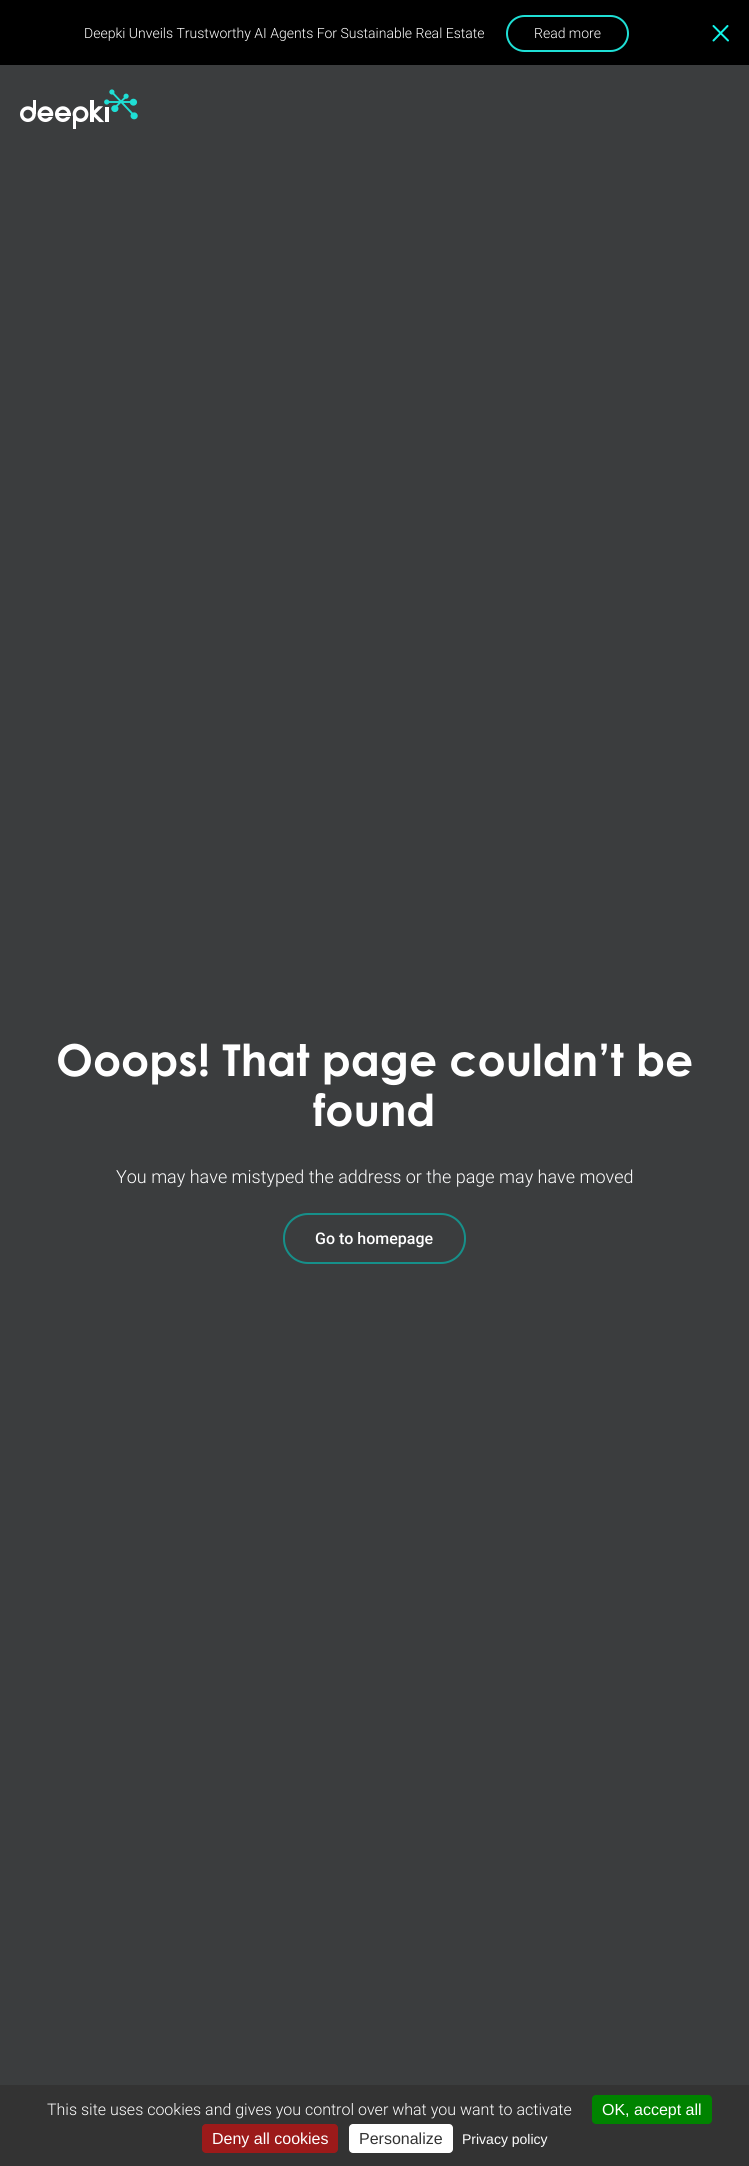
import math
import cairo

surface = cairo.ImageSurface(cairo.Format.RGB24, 749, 2166)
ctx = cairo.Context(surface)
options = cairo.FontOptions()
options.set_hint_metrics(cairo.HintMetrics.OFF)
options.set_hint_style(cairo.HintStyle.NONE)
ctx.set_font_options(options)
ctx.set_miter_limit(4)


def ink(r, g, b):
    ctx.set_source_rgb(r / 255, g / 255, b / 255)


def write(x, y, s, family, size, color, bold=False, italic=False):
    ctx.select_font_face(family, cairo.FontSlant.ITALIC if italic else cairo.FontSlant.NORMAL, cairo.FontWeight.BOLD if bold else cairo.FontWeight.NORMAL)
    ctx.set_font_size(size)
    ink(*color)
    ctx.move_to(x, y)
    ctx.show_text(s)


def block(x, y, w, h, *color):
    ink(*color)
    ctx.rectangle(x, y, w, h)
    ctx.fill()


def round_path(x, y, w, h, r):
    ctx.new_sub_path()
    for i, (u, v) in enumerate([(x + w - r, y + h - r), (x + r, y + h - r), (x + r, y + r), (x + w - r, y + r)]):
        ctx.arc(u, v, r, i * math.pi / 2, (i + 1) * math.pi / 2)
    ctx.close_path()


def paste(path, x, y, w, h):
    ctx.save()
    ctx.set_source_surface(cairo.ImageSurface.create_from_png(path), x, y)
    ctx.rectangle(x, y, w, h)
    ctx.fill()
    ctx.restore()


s1 = dict(family="Roboto Light", size=14, color=(255, 255, 255))
s2 = dict(family="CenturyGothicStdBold", size=44, color=(255, 255, 255), bold=True)
s3 = dict(family="Roboto Light", size=18, color=(255, 255, 255))
s4 = dict(family="Roboto Medium", size=16, color=(255, 255, 255))
s5 = dict(family="Roboto Light", size=16, color=(255, 255, 255))
s6 = dict(family="Liberation Sans", size=16, color=(255, 255, 255))
s7 = dict(family="Liberation Sans", size=16, color=(51, 51, 51))
s8 = dict(family="Liberation Sans", size=14, color=(255, 255, 255))

ink(59, 61, 62)
ctx.paint()
block(0, 0, 749, 65, 0, 0, 0)
write(84, 38, "Deepki Unveils Trustworthy AI Agents For Sustainable Real Estate", **s1)
round_path(507, 16, 121, 35, 17.5)
ink(31, 223, 213)
ctx.stroke()
write(534, 38, "Read more", **s1)
ctx.new_path()
ctx.move_to(713.5, 40.5)
ctx.line_to(727.5, 26)
ctx.move_to(713.5, 26)
ctx.line_to(728, 40.5)
ink(18, 244, 233)
ctx.set_line_cap(cairo.LineCap.ROUND)
ctx.stroke()
paste("pic1.png", 20, 89, 118, 40)
write(56, 1076, "Ooops! That page couldn’t be", **s2)
write(313, 1126, "found", **s2)
write(116, 1183, "You may have mistyped the address or the page may have moved", **s3)
round_path(284, 1214, 181, 49, 24)
ink(22, 144, 138)
ctx.set_line_cap(cairo.LineCap.BUTT)
ctx.stroke()
write(315, 1244, "Go to homepage", **s4)
block(0, 2085, 749, 81, 51, 51, 51)
write(47, 2115, "This site uses cookies and gives you control over what you want to activate", **s5)
ink(0, 131, 0)
round_path(592, 2095, 120, 29, 4)
ctx.fill()
write(602, 2115, "OK, accept all", **s6)
ink(156, 26, 26)
round_path(202, 2124, 136, 29, 4)
ctx.fill()
write(212, 2144, "Deny all cookies", **s6)
round_path(349, 2124, 104, 29, 4)
ctx.fill()
write(359, 2144, "Personalize", **s7)
write(462, 2144, "Privacy policy", **s8)
surface.write_to_png("screenshot.png")
